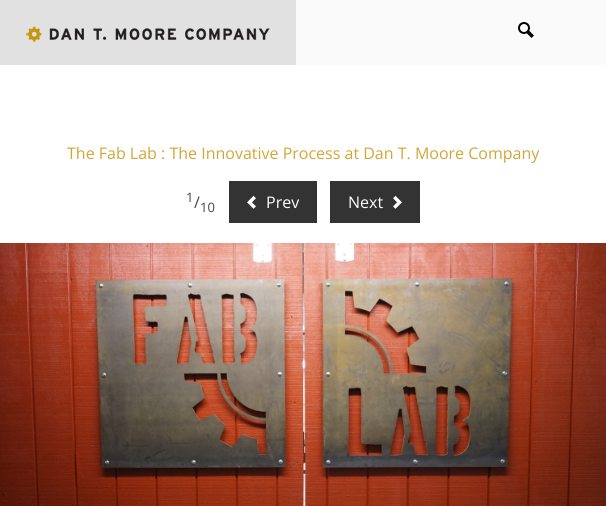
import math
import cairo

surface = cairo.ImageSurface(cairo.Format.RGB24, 606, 506)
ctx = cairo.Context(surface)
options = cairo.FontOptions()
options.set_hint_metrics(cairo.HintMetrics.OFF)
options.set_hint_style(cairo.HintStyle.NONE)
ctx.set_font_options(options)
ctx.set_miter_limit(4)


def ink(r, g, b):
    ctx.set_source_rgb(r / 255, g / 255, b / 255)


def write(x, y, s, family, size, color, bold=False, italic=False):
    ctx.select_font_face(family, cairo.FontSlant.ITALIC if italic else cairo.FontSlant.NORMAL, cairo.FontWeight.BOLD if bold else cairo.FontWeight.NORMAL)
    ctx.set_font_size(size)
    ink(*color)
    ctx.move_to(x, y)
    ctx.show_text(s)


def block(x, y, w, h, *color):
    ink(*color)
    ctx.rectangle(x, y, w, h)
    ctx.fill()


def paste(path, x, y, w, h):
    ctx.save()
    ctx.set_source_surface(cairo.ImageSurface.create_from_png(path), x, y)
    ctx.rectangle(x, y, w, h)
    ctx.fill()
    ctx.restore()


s1 = dict(family="Open Sans", size=16, color=(210, 166, 55))
s2 = dict(family="Open Sans", size=13, color=(67, 67, 67))
s3 = dict(family="Open Sans", size=16, color=(67, 67, 67))
s4 = dict(family="Open Sans", size=16, color=(255, 255, 255))

ink(255, 255, 255)
ctx.paint()
block(296, 0, 310, 65, 250, 250, 250)
block(0, 0, 296, 65, 225, 225, 225)
paste("pic1.png", 26, 26, 244, 16)
paste("pic2.png", 518, 22, 16, 16)
write(67, 159, "The Fab Lab : The Innovative Process at Dan T. Moore Company", **s1)
write(186, 202, "1", **s2)
write(194, 208, "/", **s3)
write(200, 212, "10", **s2)
block(229, 181, 88, 42, 51, 51, 51)
paste("pic3.png", 247, 195, 9, 14)
write(266, 208, "Prev", **s4)
block(330, 181, 90, 42, 51, 51, 51)
write(348, 208, "Next", **s4)
paste("pic4.png", 393, 195, 9, 14)
paste("pic5.png", 0, 243, 606, 263)
surface.write_to_png("screenshot.png")
